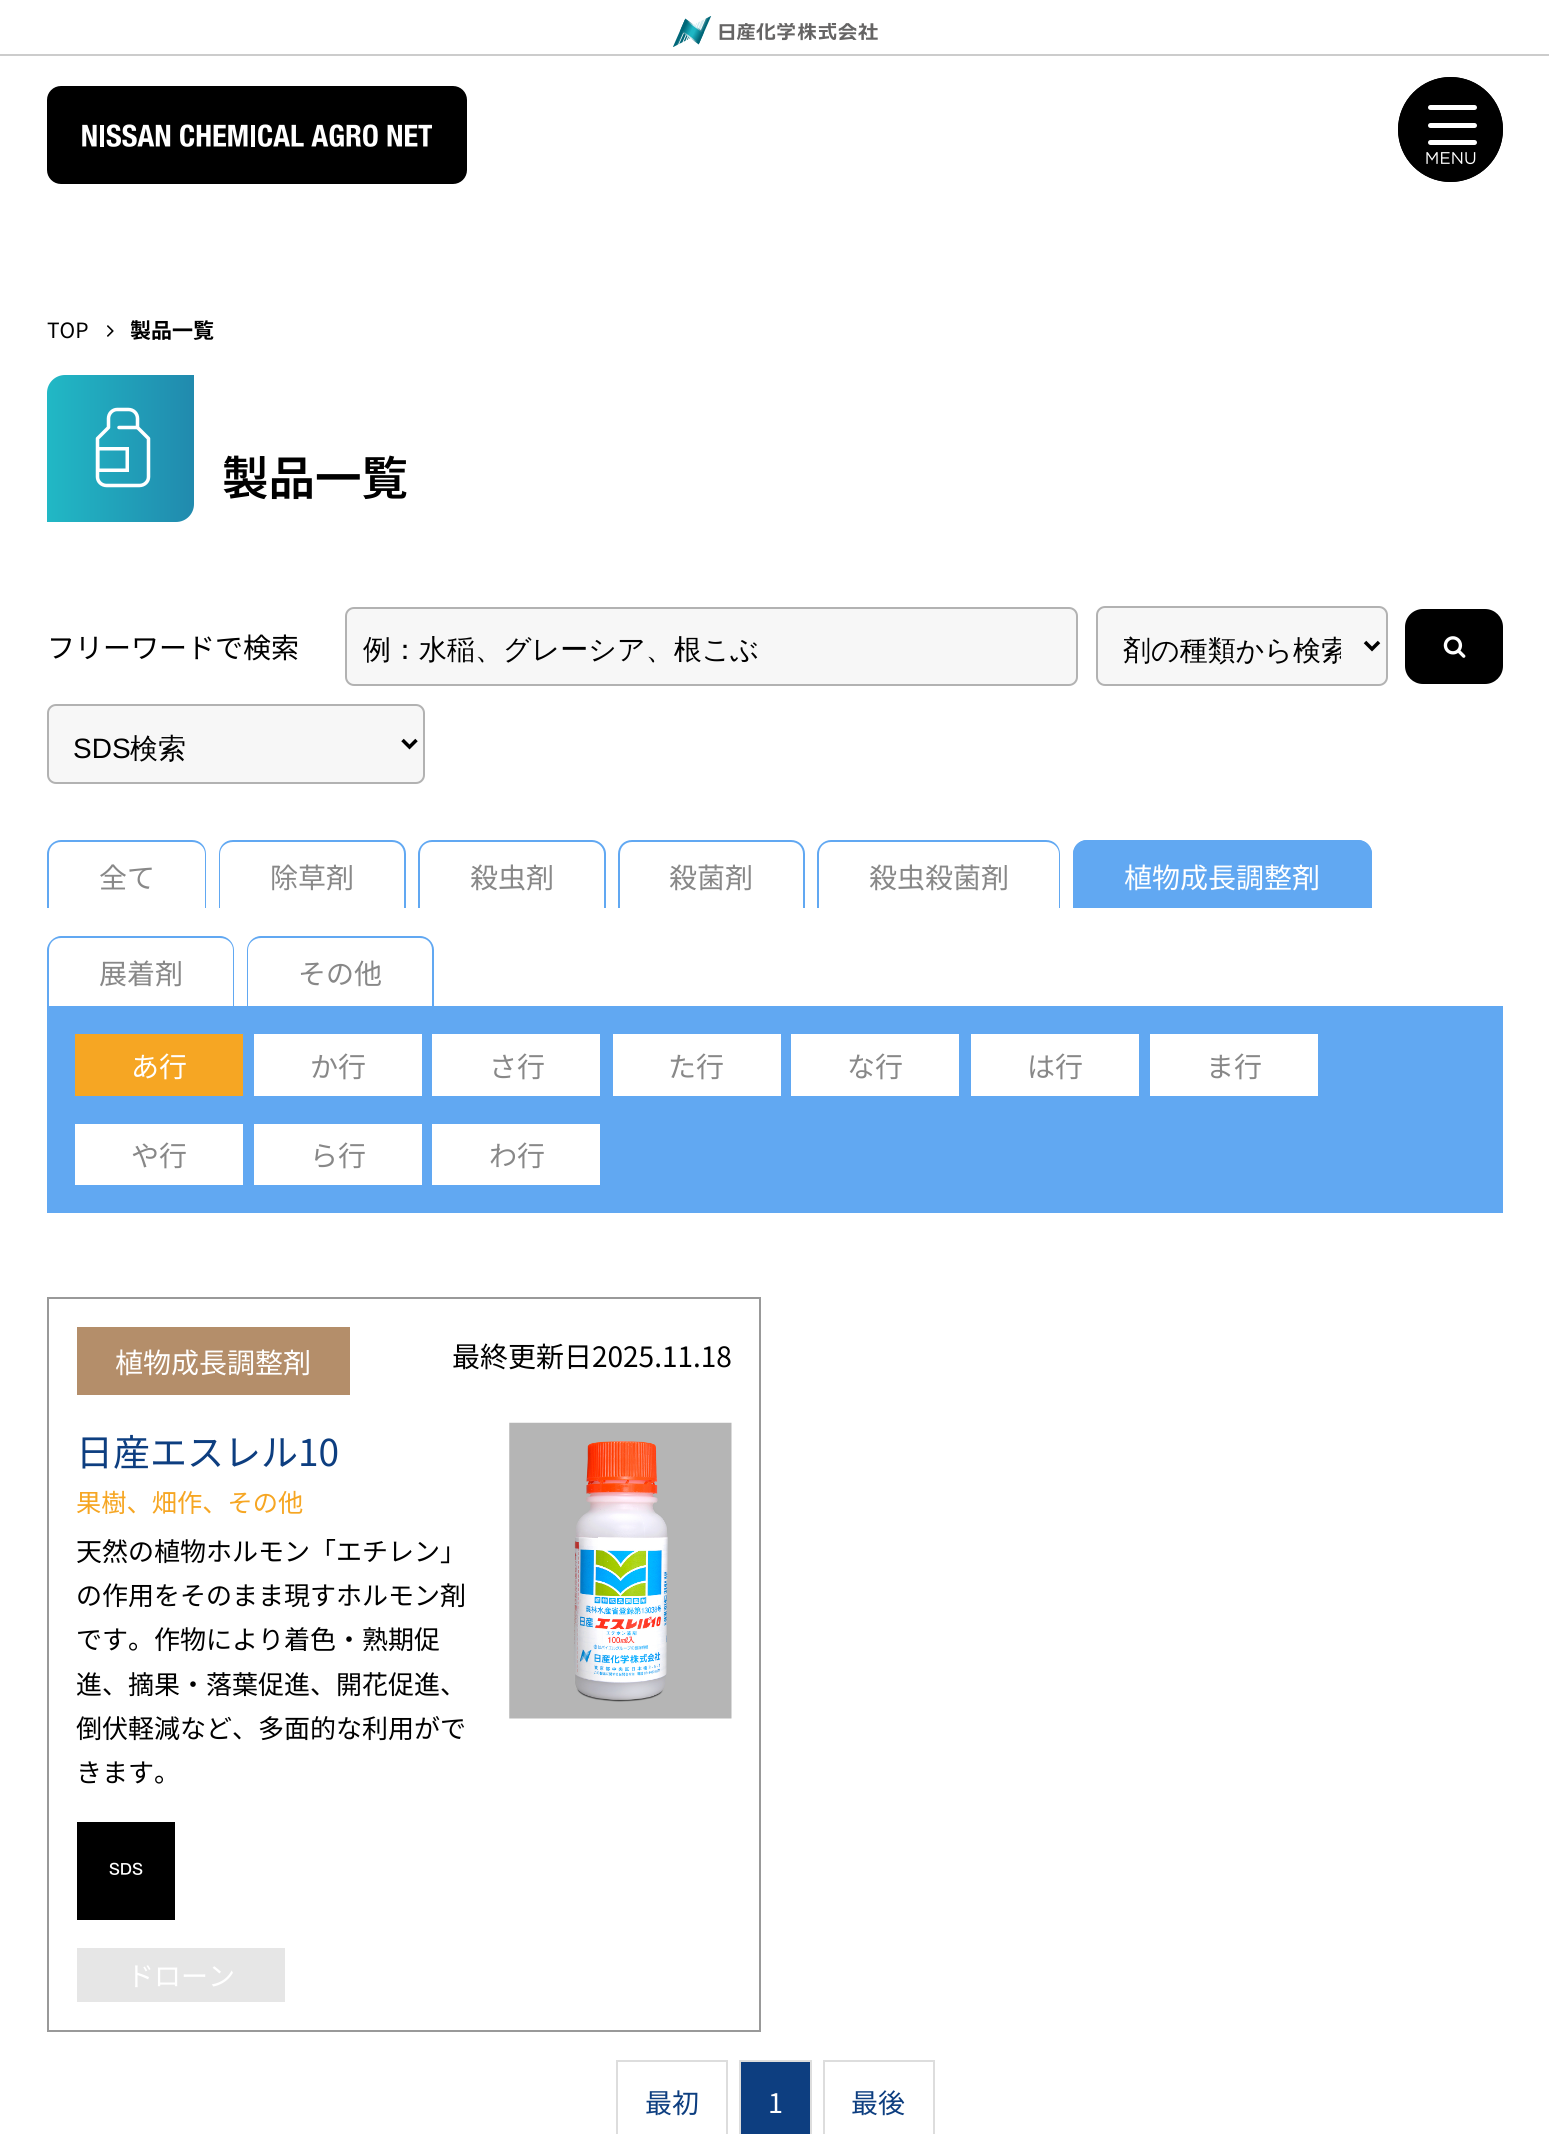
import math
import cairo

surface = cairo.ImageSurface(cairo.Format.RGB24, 1549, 2134)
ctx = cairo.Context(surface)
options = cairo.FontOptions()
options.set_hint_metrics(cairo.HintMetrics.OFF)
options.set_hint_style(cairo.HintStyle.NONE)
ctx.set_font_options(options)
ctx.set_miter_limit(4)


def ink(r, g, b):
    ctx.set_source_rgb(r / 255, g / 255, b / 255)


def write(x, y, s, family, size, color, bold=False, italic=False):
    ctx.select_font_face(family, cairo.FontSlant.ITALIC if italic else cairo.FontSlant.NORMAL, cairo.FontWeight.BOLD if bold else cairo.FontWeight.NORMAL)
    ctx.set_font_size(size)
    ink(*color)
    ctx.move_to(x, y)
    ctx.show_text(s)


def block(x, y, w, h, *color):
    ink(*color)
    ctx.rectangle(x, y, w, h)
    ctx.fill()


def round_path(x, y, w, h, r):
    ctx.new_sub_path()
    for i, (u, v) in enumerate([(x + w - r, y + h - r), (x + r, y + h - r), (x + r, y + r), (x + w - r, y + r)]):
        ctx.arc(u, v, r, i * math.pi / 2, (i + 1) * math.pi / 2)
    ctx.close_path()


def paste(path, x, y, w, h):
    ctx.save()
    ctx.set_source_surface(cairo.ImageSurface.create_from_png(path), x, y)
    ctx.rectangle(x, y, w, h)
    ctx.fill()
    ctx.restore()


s1 = dict(family="Noto Sans JP", size=21, color=(0, 0, 0))
s2 = dict(family="Noto Sans JP", size=21, color=(0, 0, 0), bold=True)
s3 = dict(family="Noto Sans JP SemiBold", size=46.5, color=(0, 0, 0))
s4 = dict(family="Noto Sans JP", size=28, color=(0, 0, 0))
s5 = dict(family="WenQuanYi Zen Hei Medium", size=28, color=(0, 0, 0))
s6 = dict(family="Liberation Sans", size=28, color=(0, 0, 0))
s7 = dict(family="Noto Sans JP", size=28, color=(136, 136, 136))
s8 = dict(family="Noto Sans JP", size=28, color=(255, 255, 255))
s9 = dict(family="Noto Sans JP", size=37, color=(13, 62, 128))
s10 = dict(family="Noto Sans JP", size=25.25, color=(246, 166, 35))
s11 = dict(family="Noto Sans JP", size=26, color=(0, 0, 0))
s12 = dict(family="Noto Sans JP", size=27, color=(255, 255, 255))
s13 = dict(family="Noto Sans JP", size=27, color=(13, 62, 128))

ink(255, 255, 255)
ctx.paint()
block(0, 54, 1549, 2, 204, 204, 204)
paste("pic1.png", 673, 16, 205, 31)
ink(0, 0, 0)
round_path(47, 86, 420, 98, 14)
ctx.fill()
paste("pic2.png", 82, 124, 350, 23)
ctx.arc(1450.5, 129.5, 52.5, 0, 2 * math.pi)
ctx.fill()
paste("pic3.png", 1426, 152, 50, 13)
ctx.arc(1450.5, 129.5, 50.5, 0, 2 * math.pi)
ctx.set_line_width(4)
ctx.stroke()
ink(255, 255, 255)
round_path(1428, 105, 49, 5, 2.5)
ctx.fill()
round_path(1428, 123, 49, 5, 2.5)
ctx.fill()
round_path(1428, 140, 49, 5, 2.5)
ctx.fill()
write(47, 338, "TOP", **s1)
paste("pic4.png", 107, 325, 7, 12)
write(130, 338, "製品一覧", **s2)
gradient = cairo.LinearGradient(47, 448, 194, 448)
gradient.add_color_stop_rgba(0, 0.129, 0.722, 0.773, 1)
gradient.add_color_stop_rgba(1, 0.129, 0.541, 0.682, 1)
ctx.set_source(gradient)
ctx.new_path()
ctx.move_to(65, 375)
ctx.line_to(194, 375)
ctx.line_to(194, 504)
ctx.curve_to(194, 514, 186, 522, 176, 522)
ctx.line_to(47, 522)
ctx.line_to(47, 393)
ctx.curve_to(47, 383, 55, 375, 65, 375)
ctx.close_path()
ctx.fill()
ctx.new_path()
ctx.move_to(97.5, 477)
ctx.curve_to(97.5, 481.5, 101.5, 485.5, 106.5, 485.5)
ctx.line_to(139.5, 485.5)
ctx.curve_to(144.5, 485.5, 148.5, 481.5, 148.5, 477)
ctx.line_to(148.5, 438.5)
ctx.line_to(137.5, 427.5)
ctx.line_to(137.5, 418.5)
ctx.curve_to(137.5, 413.5, 133.5, 409.5, 128.5, 409.5)
ctx.line_to(117, 409.5)
ctx.curve_to(112.5, 409.5, 108.5, 413.5, 108.5, 418.5)
ctx.line_to(108.5, 427.5)
ctx.line_to(97.5, 438.5)
ctx.close_path()
ink(255, 255, 255)
ctx.set_line_width(3.5)
ctx.set_line_cap(cairo.LineCap.ROUND)
ctx.set_line_join(cairo.LineJoin.ROUND)
ctx.stroke()
ctx.new_path()
ctx.move_to(137.5, 427.5)
ctx.line_to(119, 427.5)
ctx.stroke()
ctx.rectangle(97.75, 448.75, 29.5, 21.5)
ctx.set_line_cap(cairo.LineCap.BUTT)
ctx.set_line_join(cairo.LineJoin.MITER)
ctx.stroke()
write(222, 495, "製品一覧", **s3)
write(47, 658, "フリーワードで検索", **s4)
ink(247, 247, 247)
round_path(346, 608, 731, 77, 8)
ctx.fill_preserve()
ink(178, 178, 178)
ctx.set_line_width(2)
ctx.stroke()
write(363, 659, "例：水稲、グレーシア、根こぶ", **s5)
ink(247, 247, 247)
round_path(1097, 607, 290, 78, 8)
ctx.fill_preserve()
ink(178, 178, 178)
ctx.stroke()
ctx.new_path()
ctx.move_to(1365, 642)
ctx.line_to(1372, 649)
ctx.line_to(1379, 642)
ink(0, 0, 0)
ctx.set_line_width(3.5)
ctx.stroke()
ctx.save()
ctx.rectangle(1122, 634, 219, 33)
ctx.clip()
write(1123, 660, "剤の種類から検索", **s5)
ctx.restore()
round_path(1407, 611, 94, 71, 16)
ctx.fill_preserve()
ctx.set_line_width(4)
ctx.stroke()
paste("pic5.png", 1443, 636, 23, 22)
ink(247, 247, 247)
round_path(48, 705, 376, 78, 8)
ctx.fill_preserve()
ink(178, 178, 178)
ctx.set_line_width(2)
ctx.stroke()
ctx.new_path()
ctx.move_to(402.5, 740)
ctx.line_to(409.5, 747)
ctx.line_to(416.5, 740)
ink(0, 0, 0)
ctx.set_line_width(3.5)
ctx.stroke()
write(73, 758, "SDS", **s6)
write(130, 758, "検索", **s5)
ink(97, 168, 242)
ctx.set_fill_rule(cairo.FillRule.EVEN_ODD)
ctx.new_path()
ctx.move_to(61, 840)
ctx.line_to(192, 840)
ctx.curve_to(200, 840, 206, 846, 206, 854)
ctx.line_to(206, 908)
ctx.line_to(47, 908)
ctx.line_to(47, 854)
ctx.curve_to(47, 846, 54, 840, 61, 840)
ctx.close_path()
ctx.move_to(61, 842)
ctx.line_to(192, 842)
ctx.curve_to(199, 842, 205, 847, 205, 854)
ctx.line_to(205, 908)
ctx.line_to(49, 908)
ctx.line_to(49, 854)
ctx.curve_to(49, 847, 54, 842, 61, 842)
ctx.close_path()
ctx.fill()
write(99, 888, "全て", **s7)
ink(97, 168, 242)
ctx.new_path()
ctx.move_to(233, 840)
ctx.line_to(392, 840)
ctx.curve_to(400, 840, 406, 846, 406, 854)
ctx.line_to(406, 908)
ctx.line_to(219, 908)
ctx.line_to(219, 854)
ctx.curve_to(219, 846, 225, 840, 233, 840)
ctx.close_path()
ctx.move_to(233, 842)
ctx.line_to(392, 842)
ctx.curve_to(399, 842, 404, 847, 404, 854)
ctx.line_to(404, 908)
ctx.line_to(220, 908)
ctx.line_to(220, 854)
ctx.curve_to(220, 847, 226, 842, 233, 842)
ctx.close_path()
ctx.fill()
write(270, 888, "除草剤", **s7)
ink(97, 168, 242)
ctx.new_path()
ctx.move_to(432, 840)
ctx.line_to(592, 840)
ctx.curve_to(599, 840, 606, 846, 606, 854)
ctx.line_to(606, 908)
ctx.line_to(418, 908)
ctx.line_to(418, 854)
ctx.curve_to(418, 846, 425, 840, 432, 840)
ctx.close_path()
ctx.move_to(432, 842)
ctx.line_to(592, 842)
ctx.curve_to(598, 842, 604, 847, 604, 854)
ctx.line_to(604, 908)
ctx.line_to(420, 908)
ctx.line_to(420, 854)
ctx.curve_to(420, 847, 425, 842, 432, 842)
ctx.close_path()
ctx.fill()
write(470, 888, "殺虫剤", **s7)
ink(97, 168, 242)
ctx.new_path()
ctx.move_to(632, 840)
ctx.line_to(791, 840)
ctx.curve_to(799, 840, 805, 846, 805, 854)
ctx.line_to(805, 908)
ctx.line_to(618, 908)
ctx.line_to(618, 854)
ctx.curve_to(618, 846, 624, 840, 632, 840)
ctx.close_path()
ctx.move_to(632, 842)
ctx.line_to(791, 842)
ctx.curve_to(798, 842, 803, 847, 803, 854)
ctx.line_to(803, 908)
ctx.line_to(620, 908)
ctx.line_to(620, 854)
ctx.curve_to(620, 847, 625, 842, 632, 842)
ctx.close_path()
ctx.fill()
write(669, 888, "殺菌剤", **s7)
ink(97, 168, 242)
ctx.new_path()
ctx.move_to(831, 840)
ctx.line_to(1046, 840)
ctx.curve_to(1054, 840, 1060, 846, 1060, 854)
ctx.line_to(1060, 908)
ctx.line_to(817, 908)
ctx.line_to(817, 854)
ctx.curve_to(817, 846, 824, 840, 831, 840)
ctx.close_path()
ctx.move_to(831, 842)
ctx.line_to(1046, 842)
ctx.curve_to(1053, 842, 1059, 847, 1059, 854)
ctx.line_to(1059, 908)
ctx.line_to(819, 908)
ctx.line_to(819, 854)
ctx.curve_to(819, 847, 824, 842, 831, 842)
ctx.close_path()
ctx.fill()
write(869, 888, "殺虫殺菌剤", **s7)
ink(97, 168, 242)
ctx.new_path()
ctx.move_to(1087, 840)
ctx.line_to(1358, 840)
ctx.curve_to(1365.5, 840, 1372, 846.5, 1372, 854)
ctx.line_to(1372, 908)
ctx.line_to(1073, 908)
ctx.line_to(1073, 854)
ctx.curve_to(1073, 846.5, 1079.5, 840, 1087, 840)
ctx.close_path()
ctx.fill()
ctx.new_path()
ctx.move_to(1087, 840)
ctx.line_to(1358, 840)
ctx.curve_to(1366, 840, 1372, 846, 1372, 854)
ctx.line_to(1372, 908)
ctx.line_to(1073, 908)
ctx.line_to(1073, 854)
ctx.curve_to(1073, 846, 1079, 840, 1087, 840)
ctx.close_path()
ctx.move_to(1087, 842)
ctx.line_to(1358, 842)
ctx.curve_to(1365, 842, 1370, 847, 1370, 854)
ctx.line_to(1370, 908)
ctx.line_to(1074, 908)
ctx.line_to(1074, 854)
ctx.curve_to(1074, 847, 1080, 842, 1087, 842)
ctx.close_path()
ctx.fill()
write(1124, 888, "植物成長調整剤", **s8)
ink(97, 168, 242)
ctx.new_path()
ctx.move_to(61, 936)
ctx.line_to(220, 936)
ctx.curve_to(228, 936, 234, 943, 234, 950)
ctx.line_to(234, 1006)
ctx.line_to(47, 1006)
ctx.line_to(47, 950)
ctx.curve_to(47, 943, 54, 936, 61, 936)
ctx.close_path()
ctx.move_to(61, 938)
ctx.line_to(220, 938)
ctx.curve_to(227, 938, 233, 943, 233, 950)
ctx.line_to(233, 1006)
ctx.line_to(49, 1006)
ctx.line_to(49, 950)
ctx.curve_to(49, 943, 54, 938, 61, 938)
ctx.close_path()
ctx.fill()
write(99, 984, "展着剤", **s7)
ink(97, 168, 242)
ctx.new_path()
ctx.move_to(261, 936)
ctx.line_to(420, 936)
ctx.curve_to(428, 936, 434, 943, 434, 950)
ctx.line_to(434, 1006)
ctx.line_to(247, 1006)
ctx.line_to(247, 950)
ctx.curve_to(247, 943, 253, 936, 261, 936)
ctx.close_path()
ctx.move_to(261, 938)
ctx.line_to(420, 938)
ctx.curve_to(427, 938, 432, 943, 432, 950)
ctx.line_to(432, 1006)
ctx.line_to(248, 1006)
ctx.line_to(248, 950)
ctx.curve_to(248, 943, 254, 938, 261, 938)
ctx.close_path()
ctx.fill()
write(298, 984, "その他", **s7)
block(47, 1006, 1456, 207, 97, 168, 242)
block(75, 1034, 168, 62, 246, 166, 35)
write(131, 1077, "あ行", **s8)
block(254, 1034, 168, 62, 255, 255, 255)
write(310, 1077, "か行", **s7)
block(432, 1034, 168, 62, 255, 255, 255)
write(489, 1077, "さ行", **s7)
block(613, 1034, 168, 62, 255, 255, 255)
write(668, 1077, "た行", **s7)
block(791, 1034, 168, 62, 255, 255, 255)
write(847, 1077, "な行", **s7)
block(971, 1034, 168, 62, 255, 255, 255)
write(1027, 1077, "は行", **s7)
block(1150, 1034, 168, 62, 255, 255, 255)
write(1206, 1077, "ま行", **s7)
block(75, 1124, 168, 61, 255, 255, 255)
write(131, 1166, "や行", **s7)
block(254, 1124, 168, 61, 255, 255, 255)
write(310, 1166, "ら行", **s7)
block(432, 1124, 168, 61, 255, 255, 255)
write(489, 1166, "わ行", **s7)
ctx.rectangle(48, 1298, 712, 733)
ink(153, 153, 153)
ctx.set_line_width(2)
ctx.stroke()
block(77, 1327, 273, 68, 180, 142, 106)
write(115, 1373, "植物成長調整剤", **s8)
write(452, 1367, "最終更新日2025.11.18", **s4)
write(76, 1466, "日産エスレル10", **s9)
write(76, 1512, "果樹、畑作、その他", **s10)
write(76, 1561, "天然の植物ホルモン「エチレン」", **s11)
write(76, 1605, "の作用をそのまま現すホルモン剤", **s11)
write(76, 1649, "です。作物により着色・熟期促", **s11)
write(76, 1694, "進、摘果・落葉促進、開花促進、", **s11)
write(76, 1738, "倒伏軽減など、多面的な利用がで", **s11)
write(76, 1782, "きます。", **s11)
paste("pic6.png", 509, 1422, 223, 297)
block(77, 1822, 98, 98, 0, 0, 0)
paste("pic7.png", 109, 1862, 34, 13)
block(77, 1948, 208, 54, 230, 230, 230)
write(127, 1986, "ドローン", **s12)
ctx.rectangle(617, 2061, 110, 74)
ink(221, 221, 221)
ctx.stroke()
write(645, 2113, "最初", **s13)
ctx.rectangle(740, 2061, 71, 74)
ctx.fill_preserve()
ink(221, 221, 221)
ctx.stroke()
write(768, 2113, "1", **s12)
ctx.rectangle(824, 2061, 110, 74)
ink(221, 221, 221)
ctx.stroke()
write(851, 2113, "最後", **s13)
surface.write_to_png("screenshot.png")
